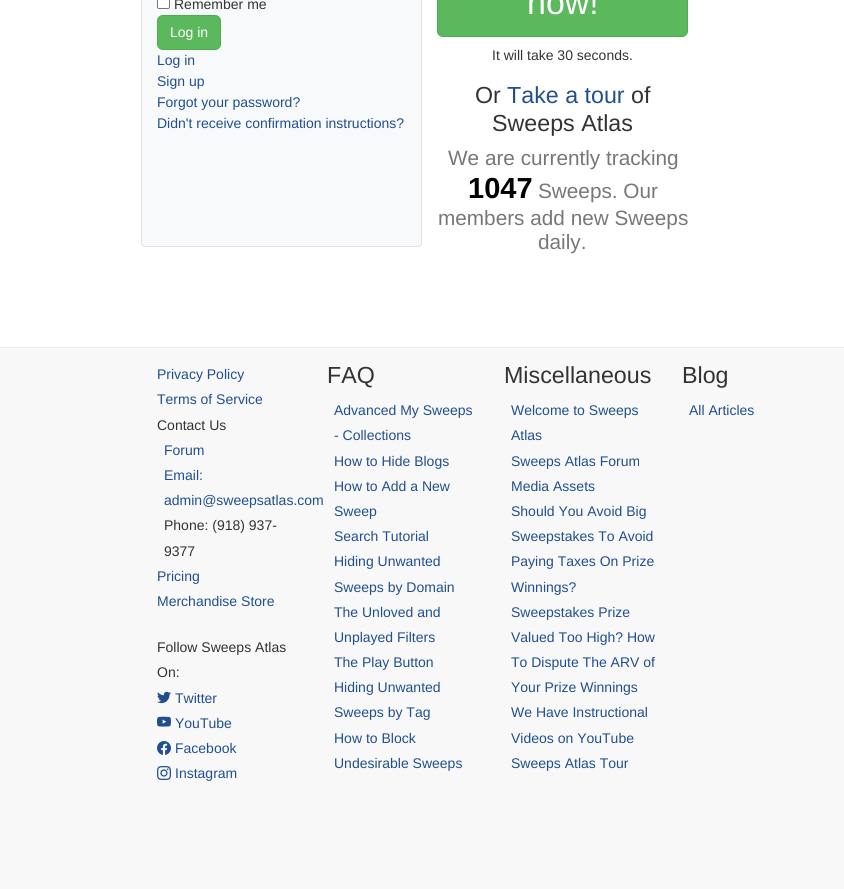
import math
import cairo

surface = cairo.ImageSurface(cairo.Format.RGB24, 844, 889)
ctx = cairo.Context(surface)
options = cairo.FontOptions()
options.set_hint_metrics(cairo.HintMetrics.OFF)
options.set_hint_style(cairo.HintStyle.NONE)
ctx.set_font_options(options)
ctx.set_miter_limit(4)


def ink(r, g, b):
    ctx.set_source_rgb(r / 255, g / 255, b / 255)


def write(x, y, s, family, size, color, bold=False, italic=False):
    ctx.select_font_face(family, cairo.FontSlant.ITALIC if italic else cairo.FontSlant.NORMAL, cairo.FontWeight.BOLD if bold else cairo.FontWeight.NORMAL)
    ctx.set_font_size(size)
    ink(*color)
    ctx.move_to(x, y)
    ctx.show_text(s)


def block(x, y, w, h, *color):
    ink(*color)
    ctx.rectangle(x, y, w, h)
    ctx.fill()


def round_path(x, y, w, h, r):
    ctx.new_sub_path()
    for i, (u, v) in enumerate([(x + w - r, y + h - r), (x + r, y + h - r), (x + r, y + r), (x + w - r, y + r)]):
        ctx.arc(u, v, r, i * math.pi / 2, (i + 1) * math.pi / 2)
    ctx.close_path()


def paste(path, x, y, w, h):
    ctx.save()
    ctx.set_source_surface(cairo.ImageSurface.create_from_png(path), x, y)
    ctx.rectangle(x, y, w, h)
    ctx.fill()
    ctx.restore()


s1 = dict(family="Liberation Sans", size=14, color=(51, 51, 51))
s2 = dict(family="Liberation Sans", size=14, color=(255, 255, 255))
s3 = dict(family="Liberation Sans", size=14, color=(32, 79, 143))
s4 = dict(family="Liberation Sans", size=34, color=(255, 255, 255))
s5 = dict(family="Liberation Sans", size=23.25, color=(51, 51, 51))
s6 = dict(family="Liberation Sans", size=23.25, color=(32, 79, 143))
s7 = dict(family="Liberation Sans", size=20.75, color=(119, 119, 119))
s8 = dict(family="Liberation Sans", size=29, color=(0, 0, 0), bold=True)

ink(255, 255, 255)
ctx.paint()
ink(248, 249, 250)
round_path(141.5, -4.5, 280, 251, 3.5)
ctx.fill_preserve()
ink(222, 226, 230)
ctx.set_line_width(1)
ctx.stroke()
ink(255, 255, 255)
round_path(157.5, -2.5, 12, 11, 1.5)
ctx.fill_preserve()
ink(118, 118, 118)
ctx.stroke()
write(174, 9, "Remember me", **s1)
ink(92, 184, 92)
round_path(157.5, 15.5, 63, 34, 5.5)
ctx.fill_preserve()
ink(76, 174, 76)
ctx.stroke()
write(170, 37, "Log in", **s2)
write(157, 65, "Log in", **s3)
write(157, 86, "Sign up", **s3)
write(157, 107, "Forgot your password?", **s3)
write(157, 128, "Didn't receive confirmation instructions?", **s3)
ink(92, 184, 92)
round_path(437.5, -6.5, 250, 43, 5.5)
ctx.fill_preserve()
ink(76, 174, 76)
ctx.stroke()
write(527, 14, "now!", **s4)
write(492, 60, "It will take 30 seconds.", **s1)
write(475, 103, "Or", **s5)
write(507, 103, "Take a tour", **s6)
write(631, 103, "of", **s5)
write(492, 131, "Sweeps Atlas", **s5)
write(448, 165, "We are currently tracking", **s7)
write(468, 198, "1047", **s8)
write(538, 198, "Sweeps. Our", **s7)
write(438, 225, "members add new Sweeps", **s7)
write(538, 249, "daily.", **s7)
block(0, 348, 844, 541, 248, 248, 248)
block(0, 347, 844, 1, 237, 237, 237)
write(157, 379, "Privacy Policy", **s3)
write(157, 404, "Terms of Service", **s3)
write(157, 430, "Contact Us", **s1)
write(164, 455, "Forum", **s3)
write(164, 480, "Email:", **s3)
write(164, 505, "admin@sweepsatlas.com", **s3)
write(164, 530, "Phone: (918) 937-", **s1)
write(164, 556, "9377", **s1)
write(157, 581, "Pricing", **s3)
write(157, 606, "Merchandise Store", **s3)
write(157, 652, "Follow Sweeps Atlas", **s1)
write(157, 677, "On:", **s1)
paste("pic1.png", 157, 691, 14, 13)
write(175, 703, "Twitter", **s3)
paste("pic2.png", 157, 716, 14, 11)
write(175, 728, "YouTube", **s3)
paste("pic3.png", 157, 741, 14, 14)
write(175, 753, "Facebook", **s3)
paste("pic4.png", 157, 766, 14, 14)
write(175, 778, "Instagram", **s3)
write(327, 383, "FAQ", **s5)
write(334, 415, "Advanced My Sweeps", **s3)
write(334, 440, "- Collections", **s3)
write(334, 466, "How to Hide Blogs", **s3)
write(334, 491, "How to Add a New", **s3)
write(334, 516, "Sweep", **s3)
write(334, 541, "Search Tutorial", **s3)
write(334, 566, "Hiding Unwanted", **s3)
write(334, 592, "Sweeps by Domain", **s3)
write(334, 617, "The Unloved and", **s3)
write(334, 642, "Unplayed Filters", **s3)
write(334, 667, "The Play Button", **s3)
write(334, 692, "Hiding Unwanted", **s3)
write(334, 717, "Sweeps by Tag", **s3)
write(334, 743, "How to Block", **s3)
write(334, 768, "Undesirable Sweeps", **s3)
write(504, 383, "Miscellaneous", **s5)
write(511, 415, "Welcome to Sweeps", **s3)
write(511, 440, "Atlas", **s3)
write(511, 466, "Sweeps Atlas Forum", **s3)
write(511, 491, "Media Assets", **s3)
write(511, 516, "Should You Avoid Big", **s3)
write(511, 541, "Sweepstakes To Avoid", **s3)
write(511, 566, "Paying Taxes On Prize", **s3)
write(511, 592, "Winnings?", **s3)
write(511, 617, "Sweepstakes Prize", **s3)
write(511, 642, "Valued Too High? How", **s3)
write(511, 667, "To Dispute The ARV of", **s3)
write(511, 692, "Your Prize Winnings", **s3)
write(511, 717, "We Have Instructional", **s3)
write(511, 743, "Videos on YouTube", **s3)
write(511, 768, "Sweeps Atlas Tour", **s3)
write(682, 383, "Blog", **s5)
write(689, 415, "All Articles", **s3)
surface.write_to_png("screenshot.png")
